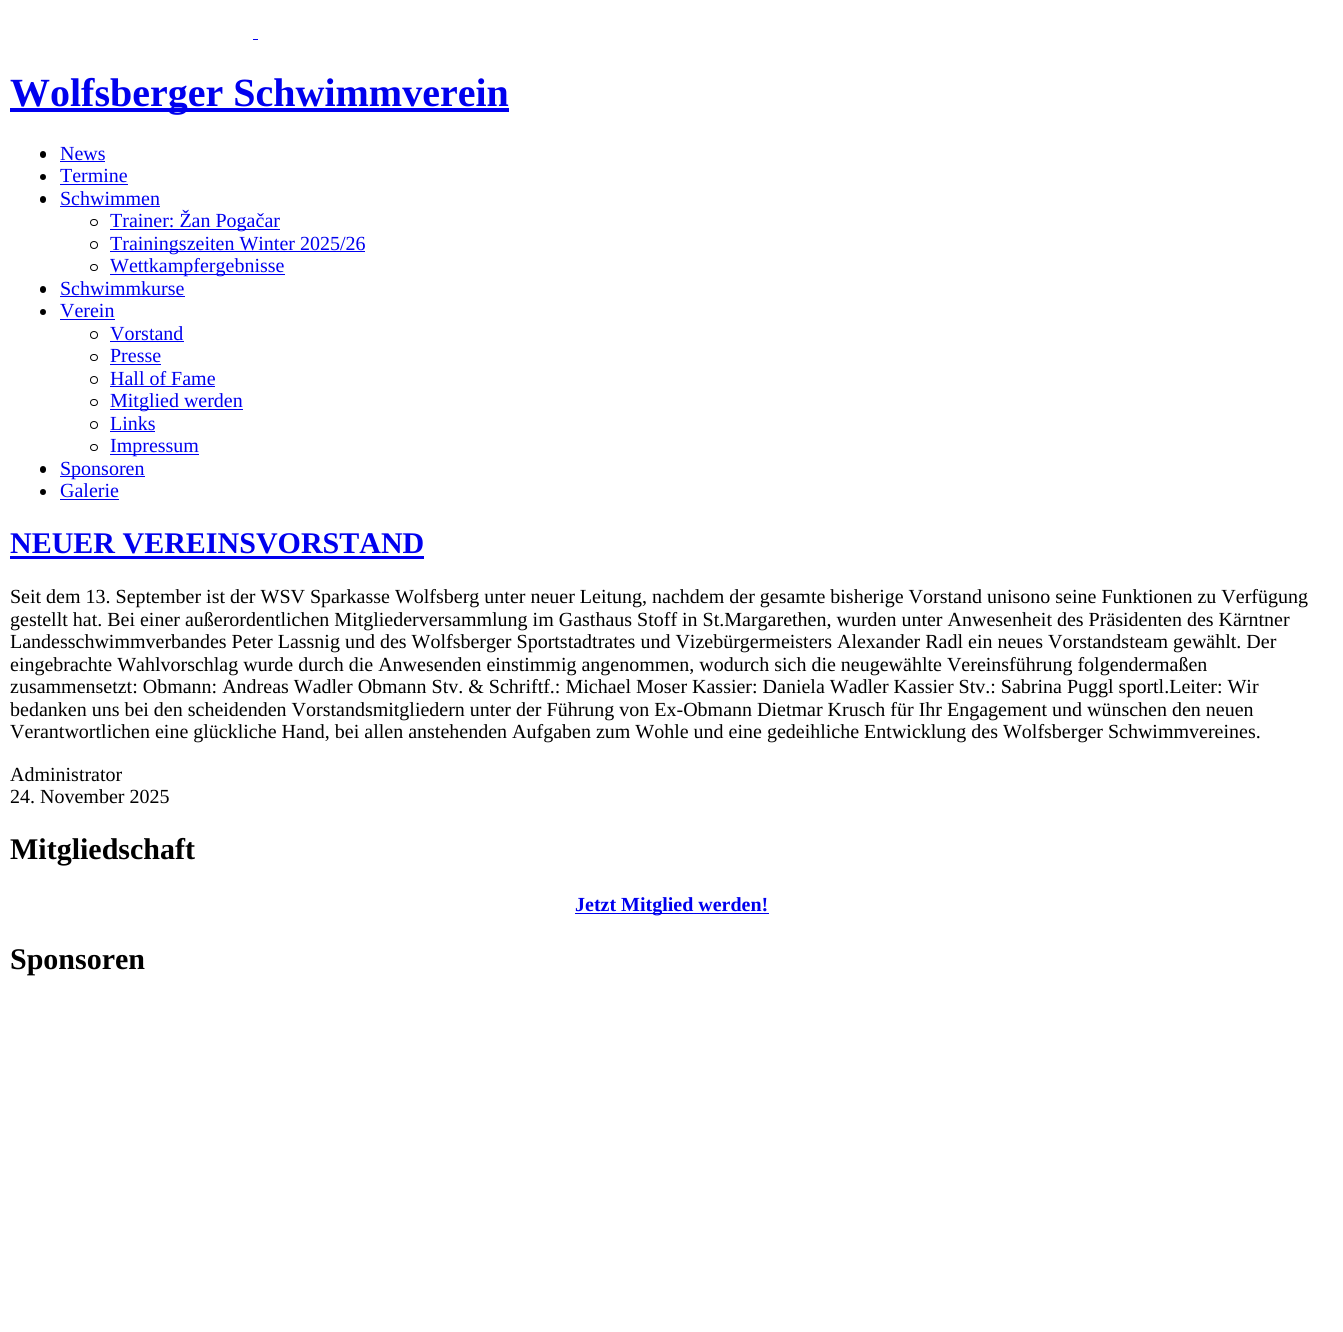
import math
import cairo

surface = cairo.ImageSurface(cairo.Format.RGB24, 1343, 1332)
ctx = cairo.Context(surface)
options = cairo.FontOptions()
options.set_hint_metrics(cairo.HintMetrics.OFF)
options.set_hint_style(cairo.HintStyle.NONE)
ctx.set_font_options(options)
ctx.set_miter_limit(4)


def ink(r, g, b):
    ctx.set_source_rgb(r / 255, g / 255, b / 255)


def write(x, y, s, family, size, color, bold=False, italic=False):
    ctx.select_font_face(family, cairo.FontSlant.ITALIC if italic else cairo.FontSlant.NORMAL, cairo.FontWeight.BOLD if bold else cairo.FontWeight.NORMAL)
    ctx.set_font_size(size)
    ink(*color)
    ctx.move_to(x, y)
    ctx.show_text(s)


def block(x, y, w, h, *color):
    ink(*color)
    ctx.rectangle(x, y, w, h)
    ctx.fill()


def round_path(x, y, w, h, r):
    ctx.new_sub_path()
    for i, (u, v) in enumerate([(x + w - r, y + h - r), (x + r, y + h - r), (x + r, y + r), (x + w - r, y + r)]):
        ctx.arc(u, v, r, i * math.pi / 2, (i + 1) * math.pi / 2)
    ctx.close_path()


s1 = dict(family="Liberation Serif", size=40, color=(0, 0, 238), bold=True)
s2 = dict(family="Liberation Serif", size=20, color=(0, 0, 238))
s3 = dict(family="Liberation Serif", size=30, color=(0, 0, 238), bold=True)
s4 = dict(family="Liberation Serif", size=20, color=(0, 0, 0))
s5 = dict(family="Liberation Serif", size=30, color=(0, 0, 0), bold=True)
s6 = dict(family="Liberation Serif", size=20, color=(0, 0, 238), bold=True)

ink(255, 255, 255)
ctx.paint()
block(253, 39, 5, 1, 0, 0, 238)
block(10, 108, 499, 4, 0, 0, 238)
write(10, 106, "Wolfsberger Schwimmverein", **s1)
ink(0, 0, 0)
round_path(40, 151, 6, 7, 3)
ctx.fill()
write(60, 160, "News", **s2)
block(60, 161, 45, 1, 0, 0, 238)
ink(0, 0, 0)
ctx.new_path()
ctx.arc(43, 177, 3, 0, 2 * math.pi)
ctx.fill()
write(60, 182, "Termine", **s2)
block(60, 184, 68, 1, 0, 0, 238)
ink(0, 0, 0)
round_path(40, 196, 6, 7, 3)
ctx.fill()
write(60, 205, "Schwimmen", **s2)
block(60, 206, 100, 1, 0, 0, 238)
round_path(90.5, 219.5, 7, 6, 3)
ink(0, 0, 0)
ctx.set_line_width(1)
ctx.stroke()
block(110, 229, 170, 1, 0, 0, 238)
write(110, 227, "Trainer: Žan Pogačar", **s2)
ctx.new_path()
ctx.arc(94, 245, 3.5, 0, 2 * math.pi)
ink(0, 0, 0)
ctx.stroke()
block(110, 251, 255, 1, 0, 0, 238)
write(110, 250, "Trainingszeiten Winter 2025/26", **s2)
round_path(90.5, 264.5, 7, 6, 3)
ink(0, 0, 0)
ctx.stroke()
block(110, 274, 175, 1, 0, 0, 238)
write(110, 272, "Wettkampfergebnisse", **s2)
ink(0, 0, 0)
round_path(40, 286, 6, 7, 3)
ctx.fill()
write(60, 295, "Schwimmkurse", **s2)
block(60, 296, 125, 1, 0, 0, 238)
ink(0, 0, 0)
ctx.new_path()
ctx.arc(43, 312, 3, 0, 2 * math.pi)
ctx.fill()
write(60, 317, "Verein", **s2)
block(60, 319, 55, 1, 0, 0, 238)
ctx.new_path()
ctx.arc(94, 335, 3.5, 0, 2 * math.pi)
ink(0, 0, 0)
ctx.stroke()
write(110, 340, "Vorstand", **s2)
block(110, 341, 74, 1, 0, 0, 238)
round_path(90.5, 354.5, 7, 6, 3)
ink(0, 0, 0)
ctx.stroke()
write(110, 362, "Presse", **s2)
block(110, 364, 51, 1, 0, 0, 238)
ctx.new_path()
ctx.arc(94, 380, 3.5, 0, 2 * math.pi)
ink(0, 0, 0)
ctx.stroke()
write(110, 385, "Hall of Fame", **s2)
block(110, 386, 105, 1, 0, 0, 238)
round_path(90.5, 399.5, 7, 6, 3)
ink(0, 0, 0)
ctx.stroke()
block(110, 409, 133, 1, 0, 0, 238)
write(110, 407, "Mitglied werden", **s2)
ctx.new_path()
ctx.arc(94, 425, 3.5, 0, 2 * math.pi)
ink(0, 0, 0)
ctx.stroke()
write(110, 430, "Links", **s2)
block(110, 431, 45, 1, 0, 0, 238)
round_path(90.5, 444.5, 7, 6, 3)
ink(0, 0, 0)
ctx.stroke()
block(110, 454, 89, 1, 0, 0, 238)
write(110, 452, "Impressum", **s2)
ink(0, 0, 0)
round_path(40, 466, 6, 7, 3)
ctx.fill()
block(60, 476, 85, 1, 0, 0, 238)
write(60, 475, "Sponsoren", **s2)
ink(0, 0, 0)
ctx.new_path()
ctx.arc(43, 492, 3, 0, 2 * math.pi)
ctx.fill()
write(60, 497, "Galerie", **s2)
block(60, 499, 59, 1, 0, 0, 238)
write(10, 553, "NEUER VEREINSVORSTAND", **s3)
block(10, 556, 414, 3, 0, 0, 238)
write(10, 603, "Seit dem 13. September ist der WSV Sparkasse Wolfsberg unter neuer Leitung, nachdem der gesamte bisherige Vorstand unisono seine Funktionen zu Verfügung", **s4)
write(10, 626, "gestellt hat. Bei einer außerordentlichen Mitgliederversammlung im Gasthaus Stoff in St.Margarethen, wurden unter Anwesenheit des Präsidenten des Kärntner", **s4)
write(10, 648, "Landesschwimmverbandes Peter Lassnig und des Wolfsberger Sportstadtrates und Vizebürgermeisters Alexander Radl ein neues Vorstandsteam gewählt. Der", **s4)
write(10, 671, "eingebrachte Wahlvorschlag wurde durch die Anwesenden einstimmig angenommen, wodurch sich die neugewählte Vereinsführung folgendermaßen", **s4)
write(10, 693, "zusammensetzt: Obmann: Andreas Wadler Obmann Stv. & Schriftf.: Michael Moser Kassier: Daniela Wadler Kassier Stv.: Sabrina Puggl sportl.Leiter: Wir", **s4)
write(10, 716, "bedanken uns bei den scheidenden Vorstandsmitgliedern unter der Führung von Ex-Obmann Dietmar Krusch für Ihr Engagement und wünschen den neuen", **s4)
write(10, 738, "Verantwortlichen eine glückliche Hand, bei allen anstehenden Aufgaben zum Wohle und eine gedeihliche Entwicklung des Wolfsberger Schwimmvereines.", **s4)
write(10, 781, "Administrator", **s4)
write(10, 803, "24. November 2025", **s4)
write(10, 859, "Mitgliedschaft", **s5)
block(575, 913, 194, 1, 0, 0, 238)
write(575, 911, "Jetzt Mitglied werden!", **s6)
write(10, 969, "Sponsoren", **s5)
surface.write_to_png("screenshot.png")
